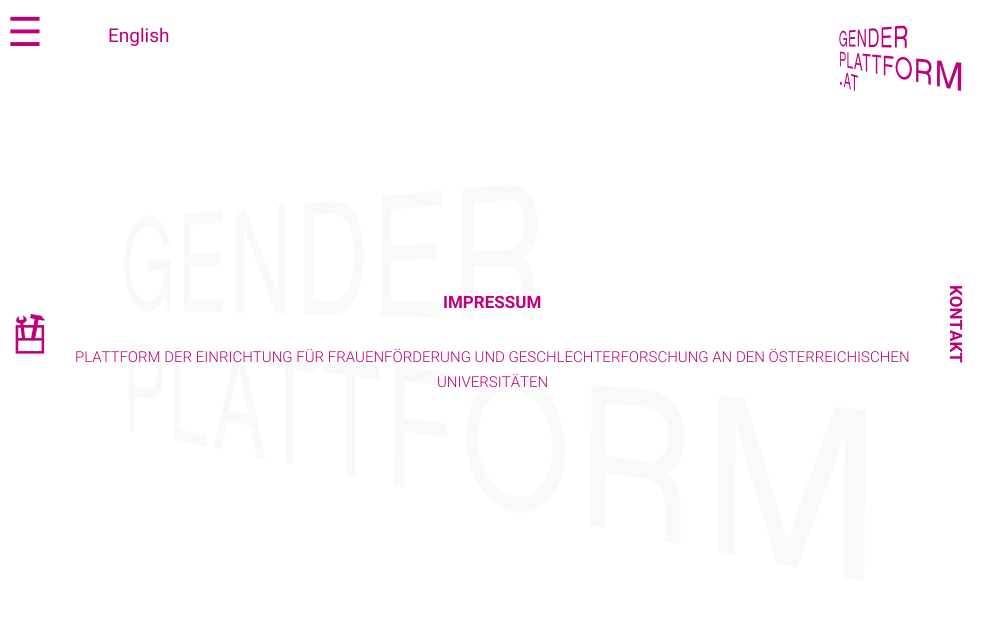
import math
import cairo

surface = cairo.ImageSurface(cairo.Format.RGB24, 985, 623)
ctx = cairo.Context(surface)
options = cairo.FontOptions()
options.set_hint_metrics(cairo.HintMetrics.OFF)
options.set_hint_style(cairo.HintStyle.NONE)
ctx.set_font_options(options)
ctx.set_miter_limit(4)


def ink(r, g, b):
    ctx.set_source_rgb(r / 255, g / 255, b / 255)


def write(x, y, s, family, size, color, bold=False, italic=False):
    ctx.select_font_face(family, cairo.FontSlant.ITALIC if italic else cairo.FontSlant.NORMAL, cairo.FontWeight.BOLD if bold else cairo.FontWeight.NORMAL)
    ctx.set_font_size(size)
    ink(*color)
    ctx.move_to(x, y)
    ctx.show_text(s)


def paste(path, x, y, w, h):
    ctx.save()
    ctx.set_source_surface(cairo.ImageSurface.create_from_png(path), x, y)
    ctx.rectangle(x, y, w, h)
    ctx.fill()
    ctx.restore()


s1 = dict(family="DejaVu Sans", size=40, color=(189, 0, 123))
s2 = dict(family="Roboto", size=19, color=(189, 0, 123))
s3 = dict(family="Roboto", size=17, color=(189, 0, 123), bold=True)
s4 = dict(family="Roboto Light", size=15, color=(189, 0, 123))

ink(255, 255, 255)
ctx.paint()
write(7, 46, "☰", **s1)
write(108, 42, "English", **s2)
paste("pic1.png", 839, 25, 123, 66)
paste("pic2.png", 15, 314, 30, 40)
paste("pic3.png", 124, 185, 741, 396)
write(443, 308, "IMPRESSUM", **s3)
write(75, 362, "PLATTFORM DER EINRICHTUNG FÜR FRAUENFÖRDERUNG UND GESCHLECHTERFORSCHUNG AN DEN ÖSTERREICHISCHEN", **s4)
write(437, 387, "UNIVERSITÄTEN", **s4)
ctx.save()
ctx.translate(950, 285)
ctx.rotate(90 * math.pi / 180)
write(0, 0, "KONTAKT", **s3)
ctx.restore()
surface.write_to_png("screenshot.png")
